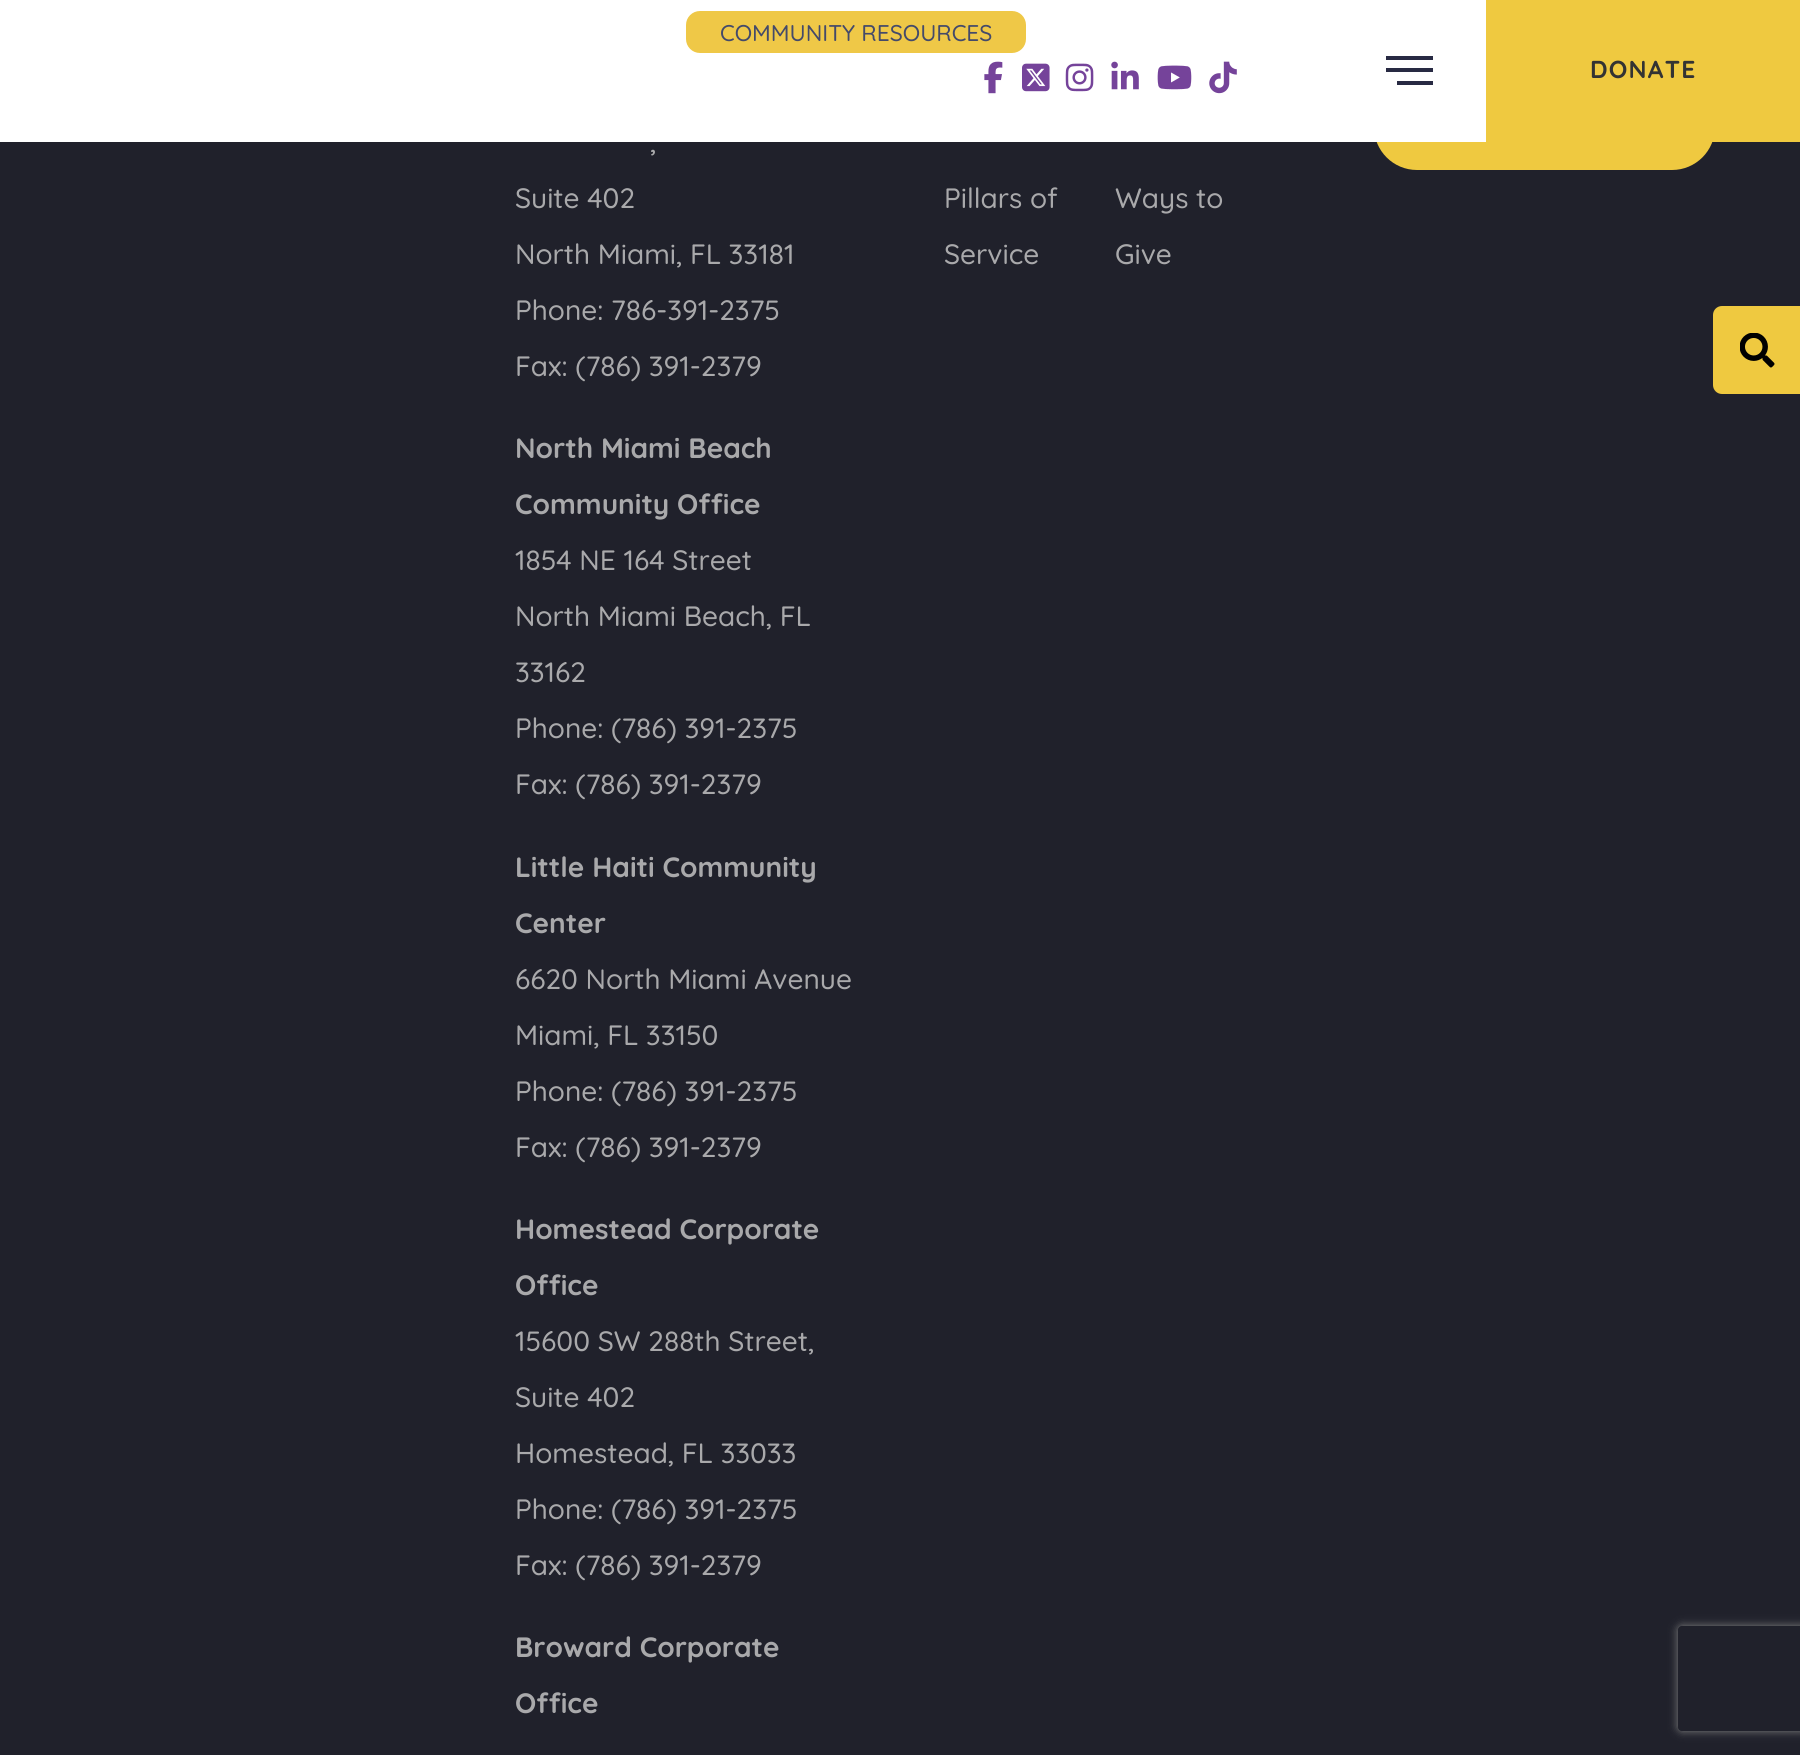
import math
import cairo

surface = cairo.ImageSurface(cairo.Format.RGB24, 1800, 1755)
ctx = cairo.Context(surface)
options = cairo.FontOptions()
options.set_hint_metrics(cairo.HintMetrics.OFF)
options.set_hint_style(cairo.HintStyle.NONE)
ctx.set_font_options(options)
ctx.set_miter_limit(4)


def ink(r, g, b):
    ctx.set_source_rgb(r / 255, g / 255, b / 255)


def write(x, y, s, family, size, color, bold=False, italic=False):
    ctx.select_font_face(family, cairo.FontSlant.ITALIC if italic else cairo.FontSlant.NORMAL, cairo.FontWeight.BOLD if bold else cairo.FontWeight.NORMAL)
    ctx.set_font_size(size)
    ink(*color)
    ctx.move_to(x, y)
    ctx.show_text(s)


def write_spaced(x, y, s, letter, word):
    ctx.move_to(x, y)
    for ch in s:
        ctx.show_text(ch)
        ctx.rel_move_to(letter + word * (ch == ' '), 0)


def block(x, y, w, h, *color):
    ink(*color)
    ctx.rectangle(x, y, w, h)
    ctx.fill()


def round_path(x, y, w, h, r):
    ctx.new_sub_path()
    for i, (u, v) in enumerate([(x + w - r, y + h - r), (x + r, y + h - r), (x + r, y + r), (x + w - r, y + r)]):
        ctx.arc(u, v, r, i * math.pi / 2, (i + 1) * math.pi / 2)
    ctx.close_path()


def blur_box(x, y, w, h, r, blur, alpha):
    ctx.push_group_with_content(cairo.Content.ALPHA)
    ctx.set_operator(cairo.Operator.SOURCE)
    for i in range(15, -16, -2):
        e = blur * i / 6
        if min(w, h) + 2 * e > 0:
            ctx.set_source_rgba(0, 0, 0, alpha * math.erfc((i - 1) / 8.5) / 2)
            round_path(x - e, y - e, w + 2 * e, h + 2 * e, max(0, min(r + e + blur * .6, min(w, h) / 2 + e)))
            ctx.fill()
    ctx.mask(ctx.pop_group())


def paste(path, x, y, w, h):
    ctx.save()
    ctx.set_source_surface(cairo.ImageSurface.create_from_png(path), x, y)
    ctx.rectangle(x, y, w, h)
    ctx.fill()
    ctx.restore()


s1 = dict(family="Quicksand Medium", size=22.75, color=(68, 74, 106))
s2 = dict(family="Quicksand Medium", size=28, color=(169, 169, 171))
s3 = dict(family="Quicksand", size=28, color=(169, 169, 171), bold=True)

ink(32, 33, 43)
ctx.paint()
ink(239, 201, 64)
round_path(1374, 84, 341, 86, 43)
ctx.fill()
block(0, 0, 1486, 142, 255, 255, 255)
ink(239, 200, 71)
round_path(686, 11, 340, 42, 14)
ctx.fill()
write(720, 41, "COMMUNITY RESOURCES", **s1)
paste("pic1.png", 984, 61, 19, 33)
paste("pic2.png", 1022, 63, 28, 29)
paste("pic3.png", 1065, 63, 29, 29)
paste("pic4.png", 1111, 61, 28, 29)
paste("pic5.png", 1157, 65, 35, 25)
paste("pic6.png", 1209, 61, 28, 33)
block(1386, 56, 47, 4, 40, 42, 67)
block(1386, 68, 47, 4, 40, 42, 67)
block(1397, 81, 36, 4, 40, 42, 67)
block(1486, 0, 314, 142, 239, 201, 64)
ctx.select_font_face("Quicksand", cairo.FontSlant.NORMAL, cairo.FontWeight.BOLD)
ctx.set_font_size(24.5)
ink(51, 51, 51)
write_spaced(1590, 78, "DONATE", 1.25, 0)
write(650, 152, ",", **s2)
write(515, 208, "Suite 402", **s2)
write(515, 264, "North Miami, FL 33181", **s2)
write(515, 320, "Phone: 786-391-2375", **s2)
write(515, 376, "Fax: (786) 391-2379", **s2)
write(515, 458, "North Miami Beach", **s3)
write(515, 514, "Community Office", **s3)
write(515, 570, "1854 NE 164 Street", **s2)
write(515, 626, "North Miami Beach, FL", **s2)
write(515, 682, "33162", **s2)
write(515, 738, "Phone: (786) 391-2375", **s2)
write(515, 794, "Fax: (786) 391-2379", **s2)
write(515, 877, "Little Haiti Community", **s3)
write(515, 933, "Center", **s3)
write(515, 989, "6620 North Miami Avenue", **s2)
write(515, 1045, "Miami, FL 33150", **s2)
write(515, 1101, "Phone: (786) 391-2375", **s2)
write(515, 1157, "Fax: (786) 391-2379", **s2)
write(515, 1239, "Homestead Corporate", **s3)
write(515, 1295, "Office", **s3)
write(515, 1351, "15600 SW 288th Street,", **s2)
write(515, 1407, "Suite 402", **s2)
write(515, 1463, "Homestead, FL 33033", **s2)
write(515, 1519, "Phone: (786) 391-2375", **s2)
write(515, 1575, "Fax: (786) 391-2379", **s2)
write(515, 1657, "Broward Corporate", **s3)
write(515, 1713, "Office", **s3)
write(944, 208, "Pillars of", **s2)
write(944, 264, "Service", **s2)
write(1115, 208, "Ways to", **s2)
write(1115, 264, "Give", **s2)
ink(239, 201, 64)
ctx.new_path()
ctx.move_to(1722, 306)
ctx.line_to(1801, 306)
ctx.line_to(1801, 394)
ctx.line_to(1722, 394)
ctx.curve_to(1717, 394, 1713, 390, 1713, 385)
ctx.line_to(1713, 315)
ctx.curve_to(1713, 310, 1717, 306, 1722, 306)
ctx.close_path()
ctx.fill()
paste("pic7.png", 1740, 333, 35, 35)
ctx.save()
ctx.set_fill_rule(cairo.FillRule.EVEN_ODD)
ctx.new_path()
ctx.move_to(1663, 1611)
ctx.line_to(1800, 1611)
ctx.line_to(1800, 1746)
ctx.line_to(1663, 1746)
ctx.close_path()
ctx.move_to(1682, 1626)
ctx.line_to(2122, 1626)
ctx.curve_to(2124, 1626, 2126, 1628, 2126, 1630)
ctx.line_to(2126, 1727)
ctx.curve_to(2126, 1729, 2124, 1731, 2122, 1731)
ctx.line_to(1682, 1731)
ctx.curve_to(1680, 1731, 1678, 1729, 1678, 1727)
ctx.line_to(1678, 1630)
ctx.curve_to(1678, 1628, 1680, 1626, 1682, 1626)
ctx.close_path()
ctx.clip()
ink(128, 128, 128)
blur_box(1678, 1626, 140, 105, 4, 4.5, 1)
ctx.restore()
surface.write_to_png("screenshot.png")
